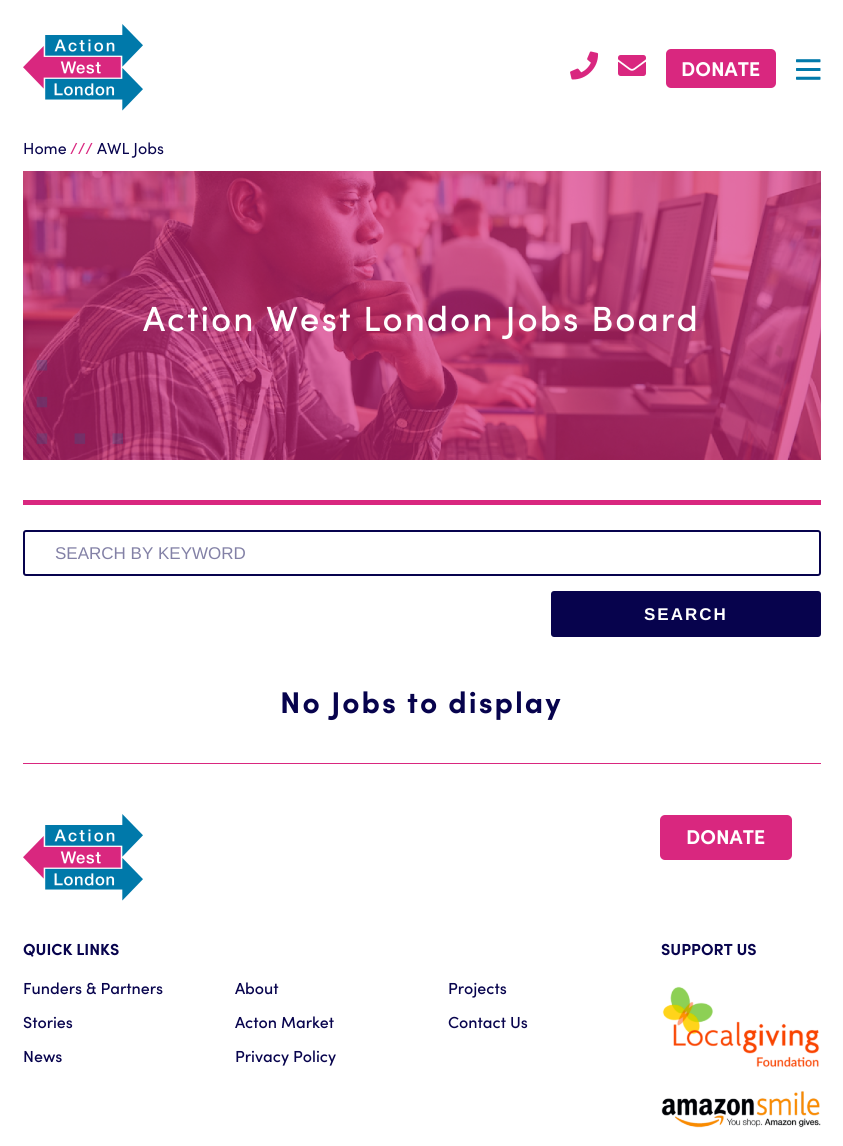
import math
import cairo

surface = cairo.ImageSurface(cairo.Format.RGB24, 843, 1146)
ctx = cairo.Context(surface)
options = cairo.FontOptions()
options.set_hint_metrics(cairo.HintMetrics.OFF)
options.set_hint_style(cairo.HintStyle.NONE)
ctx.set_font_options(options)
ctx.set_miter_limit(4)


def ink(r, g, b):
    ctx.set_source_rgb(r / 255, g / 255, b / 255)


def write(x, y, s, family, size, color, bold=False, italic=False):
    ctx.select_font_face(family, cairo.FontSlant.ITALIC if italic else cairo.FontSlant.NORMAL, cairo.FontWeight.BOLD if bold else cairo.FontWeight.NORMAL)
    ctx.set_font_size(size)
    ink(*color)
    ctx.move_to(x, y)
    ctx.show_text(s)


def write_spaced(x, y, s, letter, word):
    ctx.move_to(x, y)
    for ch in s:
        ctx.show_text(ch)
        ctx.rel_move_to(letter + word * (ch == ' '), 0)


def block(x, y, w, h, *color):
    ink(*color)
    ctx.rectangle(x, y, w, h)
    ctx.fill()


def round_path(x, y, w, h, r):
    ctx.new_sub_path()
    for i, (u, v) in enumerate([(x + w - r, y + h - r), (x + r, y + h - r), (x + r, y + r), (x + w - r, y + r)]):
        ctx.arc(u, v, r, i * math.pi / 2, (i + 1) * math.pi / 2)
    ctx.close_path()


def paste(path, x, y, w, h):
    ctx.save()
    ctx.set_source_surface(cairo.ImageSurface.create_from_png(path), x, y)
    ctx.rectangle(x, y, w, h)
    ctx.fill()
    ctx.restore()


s1 = dict(family="Sofia", size=20, color=(255, 255, 255), bold=True)
s2 = dict(family="Sofia", size=16, color=(7, 3, 77))
s3 = dict(family="Sofia", size=16, color=(217, 39, 127))
s4 = dict(family="Liberation Sans", size=17, color=(131, 129, 166))
s5 = dict(family="Sofia", size=16, color=(7, 3, 77), bold=True)
s6 = dict(family="Sofia Medium", size=16, color=(7, 3, 77))

ink(255, 255, 255)
ctx.paint()
paste("pic1.png", 23, 24, 120, 87)
paste("pic2.png", 570, 51, 29, 29)
paste("pic3.png", 618, 55, 28, 21)
ink(217, 39, 127)
round_path(666, 49, 110, 39, 5)
ctx.fill()
write(681, 76, "DONATE", **s1)
paste("pic4.png", 796, 59, 25, 21)
write(23, 154, "Home", **s2)
write(70, 154, "///", **s3)
write(97, 154, "AWL Jobs", **s2)
paste("pic5.png", 23, 171, 798, 289)
ctx.select_font_face("Sofia Medium")
ctx.set_font_size(35)
ink(255, 255, 255)
write_spaced(143, 331, "Action West London Jobs Board", 2, 0)
paste("pic6.png", 36, 360, 87, 84)
block(23, 500, 798, 5, 217, 39, 127)
round_path(24, 531, 796, 44, 2)
ink(7, 3, 77)
ctx.stroke()
write(55, 559, "SEARCH BY KEYWORD", **s4)
ink(7, 3, 77)
round_path(551, 591, 270, 46, 3)
ctx.fill()
ctx.select_font_face("Liberation Sans", cairo.FontSlant.NORMAL, cairo.FontWeight.BOLD)
ink(255, 255, 255)
write_spaced(644, 620, "SEARCH", 2, 0)
ctx.select_font_face("Sofia", cairo.FontSlant.NORMAL, cairo.FontWeight.BOLD)
ctx.set_font_size(30)
ink(7, 3, 77)
write_spaced(280, 713, "No Jobs to display", 2, 0)
block(23, 763, 798, 1, 217, 39, 127)
paste("pic1.png", 23, 814, 120, 87)
round_path(660, 815, 132, 45, 5)
ctx.fill()
write(686, 844, "DONATE", **s1)
write(23, 955, "QUICK LINKS", **s5)
write(23, 994, "Funders & Partners", **s6)
write(235, 994, "About", **s6)
write(448, 994, "Projects", **s6)
write(23, 1028, "Stories", **s6)
write(235, 1028, "Acton Market", **s6)
write(448, 1028, "Contact Us", **s6)
write(23, 1062, "News", **s6)
write(235, 1062, "Privacy Policy", **s6)
write(661, 955, "SUPPORT US", **s5)
paste("pic7.png", 662, 986, 158, 82)
paste("pic8.png", 661, 1091, 160, 37)
surface.write_to_png("screenshot.png")
